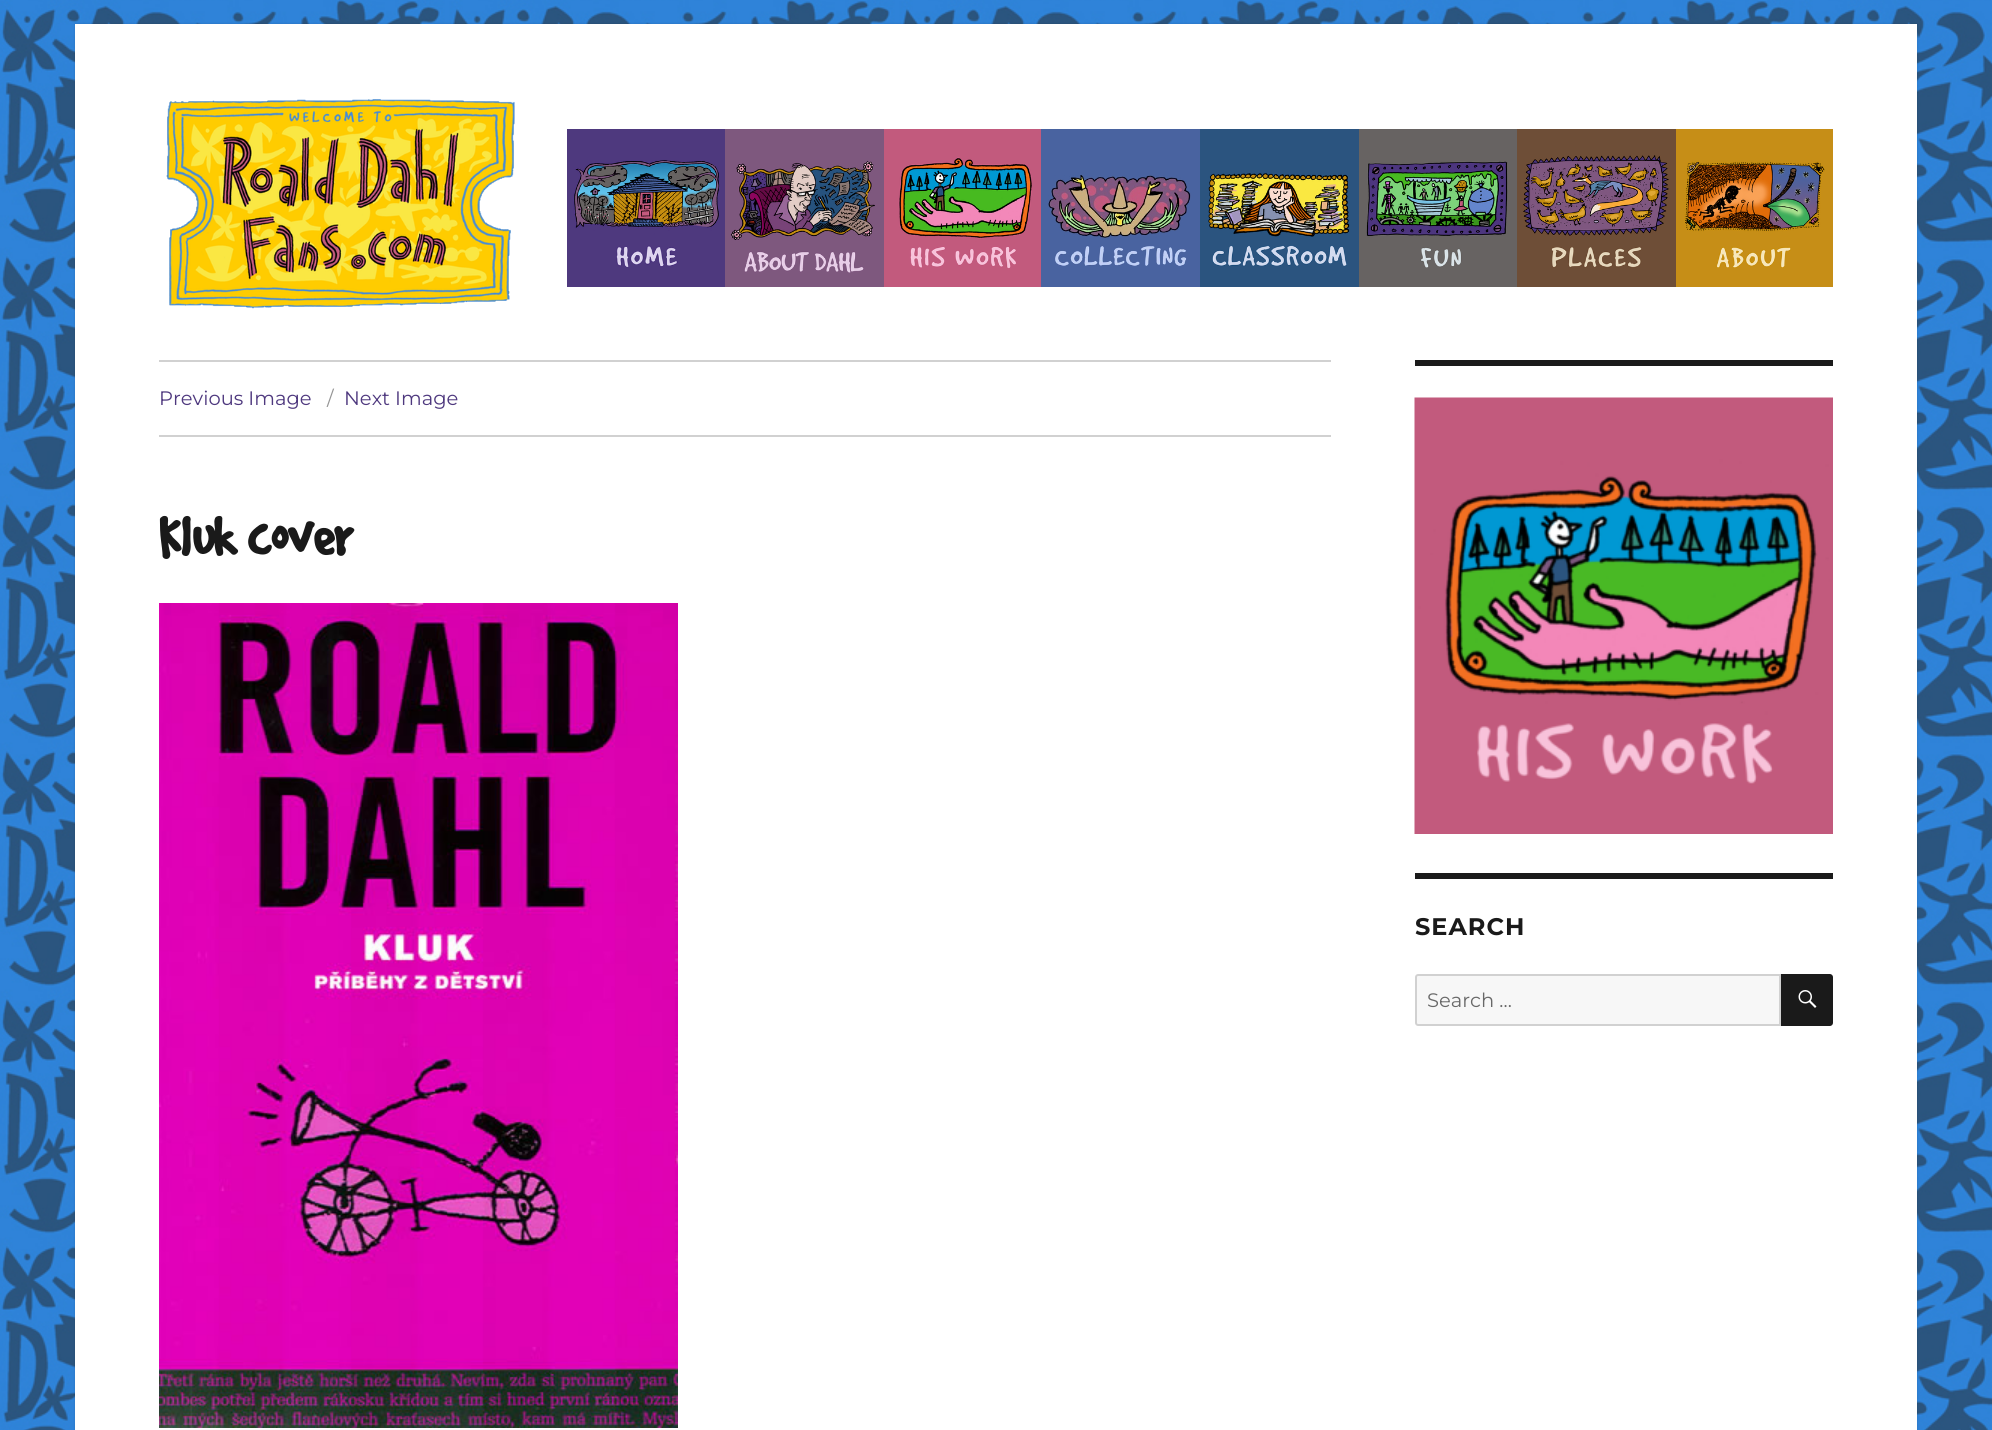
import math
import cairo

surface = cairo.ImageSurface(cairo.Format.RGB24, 1992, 1430)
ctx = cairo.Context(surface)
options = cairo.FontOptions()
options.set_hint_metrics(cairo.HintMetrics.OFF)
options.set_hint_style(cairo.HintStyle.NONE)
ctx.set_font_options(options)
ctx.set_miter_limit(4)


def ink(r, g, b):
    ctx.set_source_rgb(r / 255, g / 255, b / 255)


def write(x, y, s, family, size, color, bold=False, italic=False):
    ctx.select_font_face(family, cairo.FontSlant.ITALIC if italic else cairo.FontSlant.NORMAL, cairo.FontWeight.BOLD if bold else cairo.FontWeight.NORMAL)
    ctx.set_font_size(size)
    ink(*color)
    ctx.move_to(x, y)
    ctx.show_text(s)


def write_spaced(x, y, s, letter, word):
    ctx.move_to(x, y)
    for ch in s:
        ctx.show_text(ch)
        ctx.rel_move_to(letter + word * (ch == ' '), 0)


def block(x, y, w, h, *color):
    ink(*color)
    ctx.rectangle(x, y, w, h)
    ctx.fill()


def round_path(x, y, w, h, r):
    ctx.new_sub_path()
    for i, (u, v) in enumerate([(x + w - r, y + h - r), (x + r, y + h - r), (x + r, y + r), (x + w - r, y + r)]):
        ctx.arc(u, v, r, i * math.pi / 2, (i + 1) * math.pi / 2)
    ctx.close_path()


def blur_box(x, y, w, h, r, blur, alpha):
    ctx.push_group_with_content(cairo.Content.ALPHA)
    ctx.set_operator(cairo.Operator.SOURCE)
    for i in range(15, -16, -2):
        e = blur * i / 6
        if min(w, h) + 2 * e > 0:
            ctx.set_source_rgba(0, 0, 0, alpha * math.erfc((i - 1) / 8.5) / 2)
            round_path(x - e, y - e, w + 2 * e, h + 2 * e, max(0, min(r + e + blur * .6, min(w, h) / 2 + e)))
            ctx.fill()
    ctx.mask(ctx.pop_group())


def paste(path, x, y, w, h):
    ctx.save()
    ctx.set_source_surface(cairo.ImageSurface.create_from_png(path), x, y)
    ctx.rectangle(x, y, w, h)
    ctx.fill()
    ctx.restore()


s1 = dict(family="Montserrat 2 Thin", size=19.5, color=(78, 56, 126))
s2 = dict(family="Montserrat 2 Thin", size=19.5, color=(149, 149, 149))
s3 = dict(family="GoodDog", size=60, color=(26, 26, 26), bold=True)
s4 = dict(family="Montserrat 2 Thin", size=19.5, color=(104, 104, 104))

ink(255, 255, 255)
ctx.paint()
paste("pic1.png", 0, 0, 1992, 1430)
block(75, 24, 1842, 1406, 255, 255, 255)
ctx.save()
ctx.set_fill_rule(cairo.FillRule.EVEN_ODD)
ctx.new_path()
ctx.move_to(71, 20)
ctx.line_to(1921, 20)
ctx.line_to(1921, 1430)
ctx.line_to(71, 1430)
ctx.close_path()
ctx.move_to(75, 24)
ctx.line_to(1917, 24)
ctx.line_to(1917, 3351)
ctx.line_to(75, 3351)
ctx.close_path()
ctx.clip()
ink(0, 0, 0)
blur_box(75, 24, 1842, 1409, 0, 1, 0.15)
ctx.restore()
paste("pic2.png", 166, 99, 349, 210)
block(567, 129, 158, 158, 78, 57, 126)
paste("pic3.png", 573, 160, 147, 108)
block(725, 129, 159, 158, 126, 88, 126)
paste("pic4.png", 731, 161, 144, 112)
block(884, 129, 157, 158, 194, 90, 125)
paste("pic5.png", 898, 157, 134, 112)
block(1041, 129, 159, 158, 73, 99, 160)
paste("pic6.png", 1048, 175, 143, 91)
block(1200, 129, 159, 158, 43, 84, 127)
paste("pic7.png", 1207, 172, 143, 95)
block(1359, 129, 158, 158, 103, 99, 98)
paste("pic8.png", 1366, 161, 142, 107)
block(1517, 129, 159, 158, 110, 78, 55)
paste("pic9.png", 1523, 155, 146, 113)
block(1676, 129, 157, 158, 198, 142, 23)
paste("pic10.png", 1684, 161, 141, 107)
block(159, 360, 1172, 2, 209, 209, 209)
block(159, 435, 1172, 2, 209, 209, 209)
write(159, 405, "Previous Image", **s1)
write(327, 405, "/", **s2)
write(344, 405, "Next Image", **s1)
write(159, 556, "Kluk cover", **s3)
paste("pic11.png", 159, 603, 519, 825)
block(1415, 360, 418, 6, 26, 26, 26)
paste("pic12.png", 1414, 397, 419, 437)
block(1415, 873, 418, 6, 26, 26, 26)
ctx.select_font_face("Montserrat Thin")
ctx.set_font_size(24)
write_spaced(1415, 935, "SEARCH", 1, 0)
ink(247, 247, 247)
ctx.new_path()
ctx.move_to(1418, 975)
ctx.line_to(1780, 975)
ctx.line_to(1780, 1025)
ctx.line_to(1418, 1025)
ctx.curve_to(1417, 1025, 1416, 1024, 1416, 1023)
ctx.line_to(1416, 977)
ctx.curve_to(1416, 976, 1417, 975, 1418, 975)
ctx.close_path()
ctx.fill_preserve()
ink(209, 209, 209)
ctx.stroke()
write(1427, 1007, "Search …", **s4)
ink(26, 26, 26)
ctx.new_path()
ctx.move_to(1781, 974)
ctx.line_to(1830, 974)
ctx.curve_to(1831.5, 974, 1833, 975.5, 1833, 977)
ctx.line_to(1833, 1023)
ctx.curve_to(1833, 1024.5, 1831.5, 1026, 1830, 1026)
ctx.line_to(1781, 1026)
ctx.close_path()
ctx.fill()
paste("pic13.png", 1798, 990, 19, 18)
surface.write_to_png("screenshot.png")
